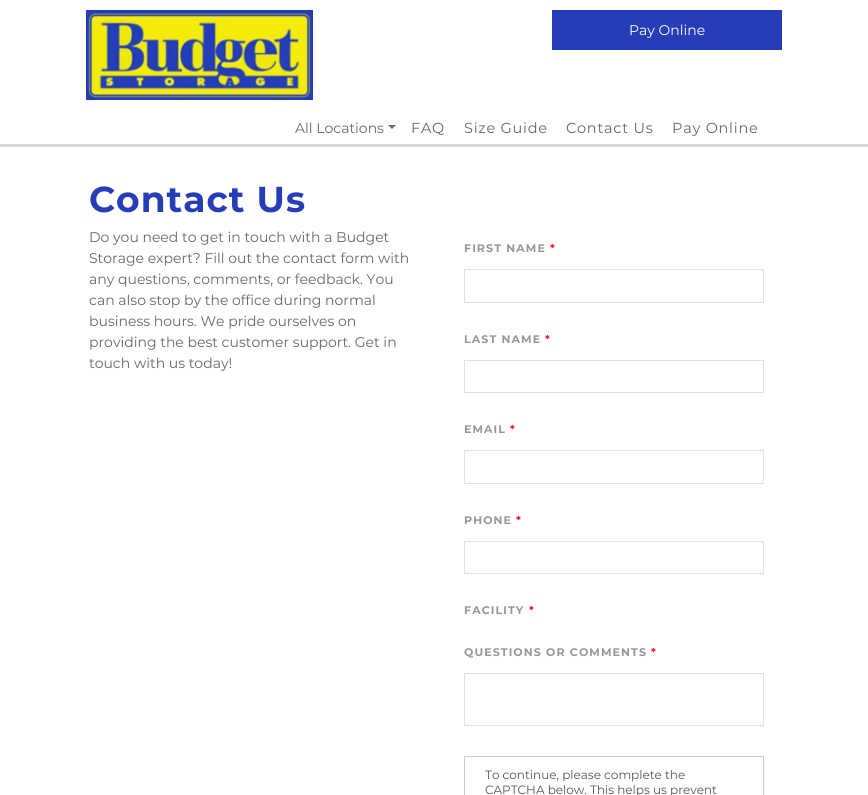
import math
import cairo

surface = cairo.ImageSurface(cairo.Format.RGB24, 868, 795)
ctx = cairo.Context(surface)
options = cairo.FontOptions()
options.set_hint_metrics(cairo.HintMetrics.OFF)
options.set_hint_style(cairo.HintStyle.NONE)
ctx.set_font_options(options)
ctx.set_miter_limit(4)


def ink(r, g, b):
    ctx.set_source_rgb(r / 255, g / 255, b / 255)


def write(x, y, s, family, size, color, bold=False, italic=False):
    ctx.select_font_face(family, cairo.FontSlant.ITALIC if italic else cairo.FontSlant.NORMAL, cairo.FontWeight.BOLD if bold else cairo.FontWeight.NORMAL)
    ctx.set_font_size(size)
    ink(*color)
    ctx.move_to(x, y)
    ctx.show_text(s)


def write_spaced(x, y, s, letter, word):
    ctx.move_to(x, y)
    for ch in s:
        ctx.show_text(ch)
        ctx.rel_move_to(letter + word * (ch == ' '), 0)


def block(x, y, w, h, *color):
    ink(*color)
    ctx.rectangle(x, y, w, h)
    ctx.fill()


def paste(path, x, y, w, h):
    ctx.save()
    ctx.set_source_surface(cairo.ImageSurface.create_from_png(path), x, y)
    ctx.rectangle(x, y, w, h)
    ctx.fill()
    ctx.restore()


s1 = dict(family="Montserrat", size=14, color=(255, 255, 255))
s2 = dict(family="Montserrat", size=14, color=(104, 104, 104))
s3 = dict(family="Montserrat", size=12, color=(85, 85, 85))

ink(255, 255, 255)
ctx.paint()
paste("pic1.png", 86, 10, 227, 90)
block(552, 10, 230, 40, 37, 61, 183)
write(629, 35, "Pay Online", **s1)
block(0, 144, 868, 3, 217, 217, 217)
write(295, 133, "All Locations", **s2)
ctx.new_path()
ctx.move_to(388, 125)
ctx.line_to(396, 125)
ctx.line_to(392, 129)
ctx.close_path()
ctx.fill()
ctx.set_font_size(14.5)
write_spaced(411, 133, "FAQ", 0.75, 0)
write_spaced(464, 133, "Size Guide", 0.75, 0)
write_spaced(566, 133, "Contact Us", 0.75, 0)
write_spaced(672, 133, "Pay Online", 0.75, 0)
ctx.select_font_face("Montserrat", cairo.FontSlant.NORMAL, cairo.FontWeight.BOLD)
ctx.set_font_size(36)
ink(37, 61, 183)
write_spaced(89, 212, "Contact Us", 1, 0)
write(89, 242, "Do you need to get in touch with a Budget", **s2)
write(89, 263, "Storage expert? Fill out the contact form with", **s2)
write(89, 284, "any questions, comments, or feedback. You", **s2)
write(89, 305, "can also stop by the office during normal", **s2)
write(89, 326, "business hours. We pride ourselves on", **s2)
write(89, 347, "providing the best customer support. Get in", **s2)
write(89, 368, "touch with us today!", **s2)
ctx.select_font_face("Montserrat", cairo.FontSlant.NORMAL, cairo.FontWeight.BOLD)
ctx.set_font_size(11)
ink(151, 151, 151)
write_spaced(464, 252, "FIRST NAME", 1.1, 0)
ink(237, 28, 36)
write_spaced(550, 252, "*", 1.1, 0)
ctx.rectangle(464.5, 269.5, 299, 33)
ink(222, 226, 230)
ctx.set_line_width(1)
ctx.stroke()
ink(151, 151, 151)
write_spaced(464, 343, "LAST NAME", 1.1, 0)
ink(237, 28, 36)
write_spaced(545, 343, "*", 1.1, 0)
ctx.rectangle(464.5, 360.5, 299, 32)
ink(222, 226, 230)
ctx.stroke()
ink(151, 151, 151)
write_spaced(464, 433, "EMAIL", 1.1, 0)
ink(237, 28, 36)
write_spaced(510, 433, "*", 1.1, 0)
ctx.rectangle(464.5, 450.5, 299, 33)
ink(222, 226, 230)
ctx.stroke()
ink(151, 151, 151)
write_spaced(464, 524, "PHONE", 1.1, 0)
ink(237, 28, 36)
write_spaced(516, 524, "*", 1.1, 0)
ctx.rectangle(464.5, 541.5, 299, 32)
ink(222, 226, 230)
ctx.stroke()
ink(151, 151, 151)
write_spaced(464, 614, "FACILITY", 1.1, 0)
ink(237, 28, 36)
write_spaced(529, 614, "*", 1.1, 0)
ink(151, 151, 151)
write_spaced(464, 656, "QUESTIONS OR COMMENTS", 1.1, 0)
ink(237, 28, 36)
write_spaced(651, 656, "*", 1.1, 0)
ctx.rectangle(464.5, 673.5, 299, 52)
ink(222, 226, 230)
ctx.stroke()
ctx.rectangle(464.5, 756.5, 299, 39)
ink(204, 204, 204)
ctx.stroke()
write(485, 779, "To continue, please complete the", **s3)
write(485, 794, "CAPTCHA below. This helps us prevent", **s3)
surface.write_to_png("screenshot.png")
